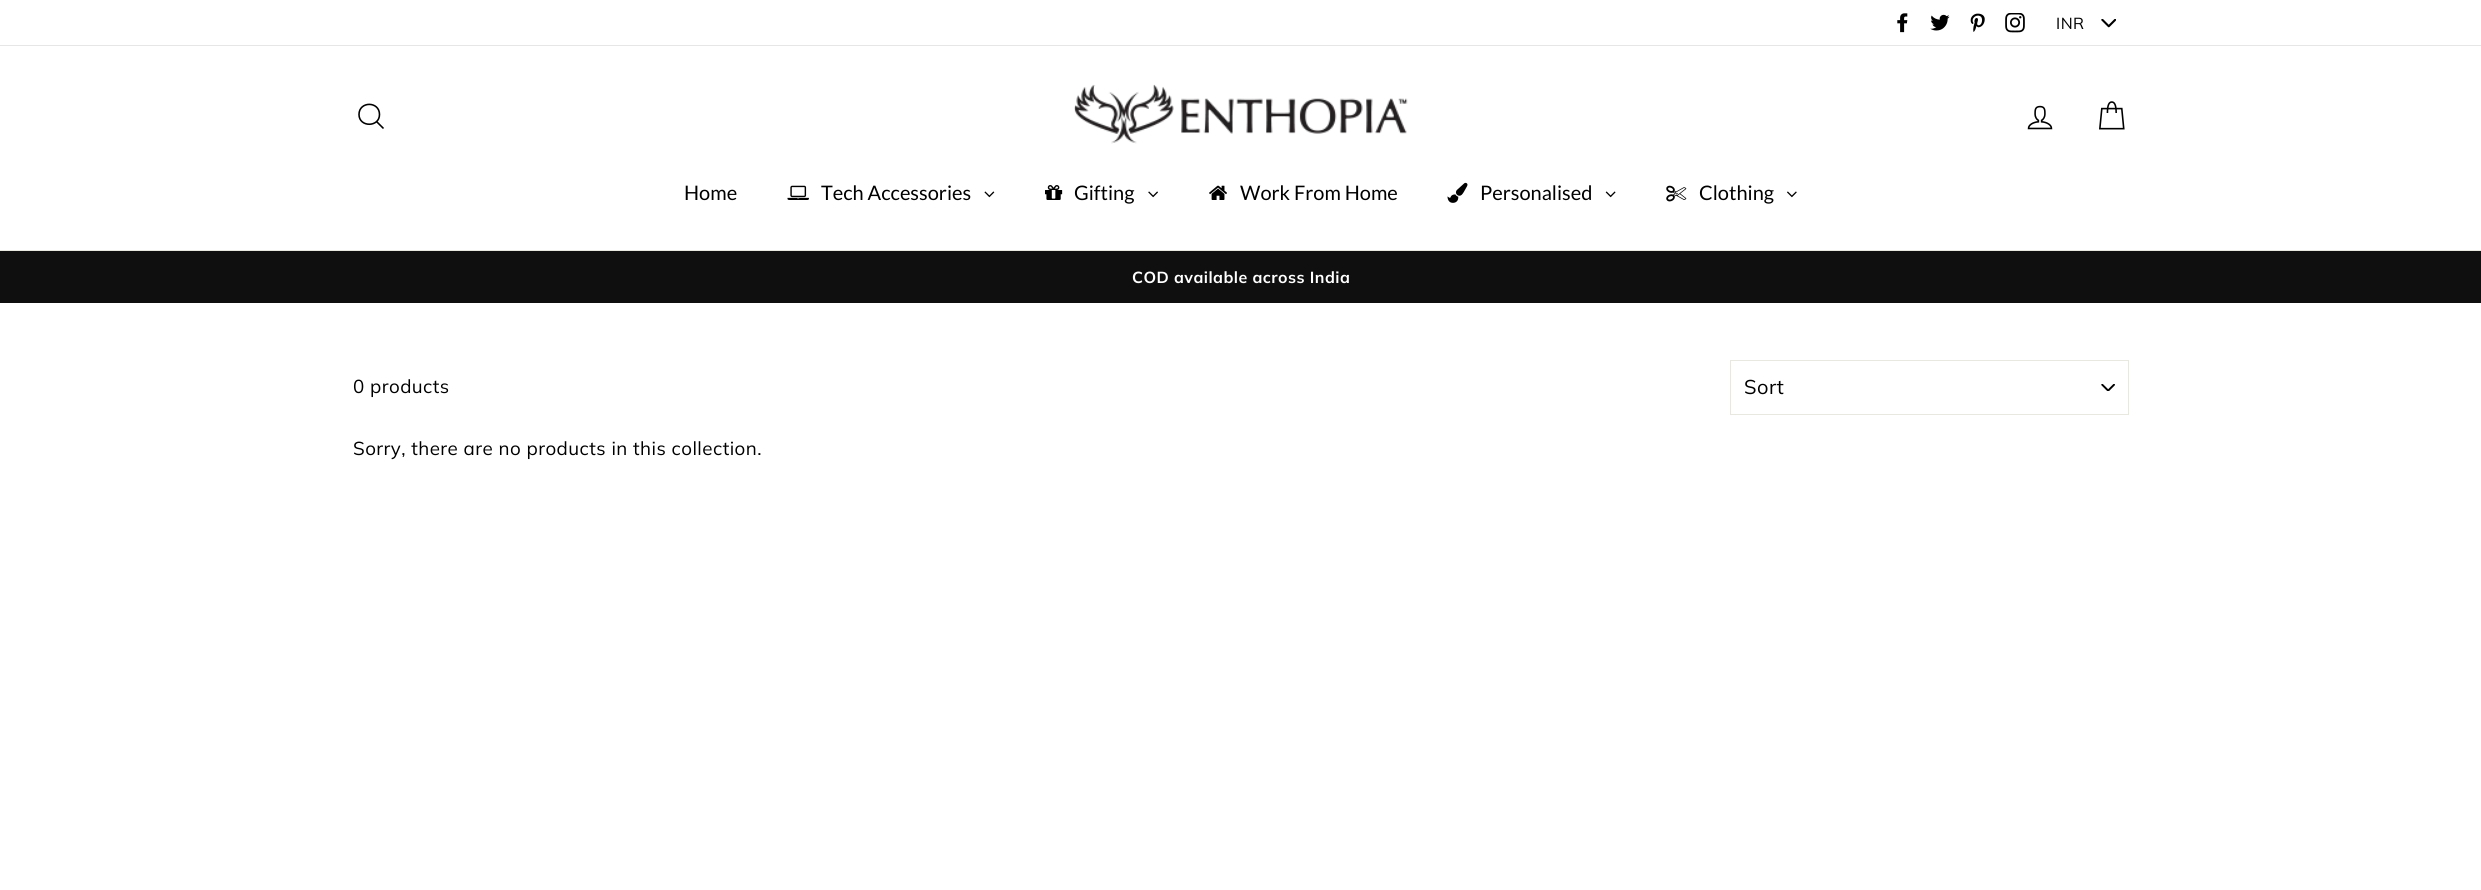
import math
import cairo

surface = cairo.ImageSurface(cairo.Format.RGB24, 2481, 890)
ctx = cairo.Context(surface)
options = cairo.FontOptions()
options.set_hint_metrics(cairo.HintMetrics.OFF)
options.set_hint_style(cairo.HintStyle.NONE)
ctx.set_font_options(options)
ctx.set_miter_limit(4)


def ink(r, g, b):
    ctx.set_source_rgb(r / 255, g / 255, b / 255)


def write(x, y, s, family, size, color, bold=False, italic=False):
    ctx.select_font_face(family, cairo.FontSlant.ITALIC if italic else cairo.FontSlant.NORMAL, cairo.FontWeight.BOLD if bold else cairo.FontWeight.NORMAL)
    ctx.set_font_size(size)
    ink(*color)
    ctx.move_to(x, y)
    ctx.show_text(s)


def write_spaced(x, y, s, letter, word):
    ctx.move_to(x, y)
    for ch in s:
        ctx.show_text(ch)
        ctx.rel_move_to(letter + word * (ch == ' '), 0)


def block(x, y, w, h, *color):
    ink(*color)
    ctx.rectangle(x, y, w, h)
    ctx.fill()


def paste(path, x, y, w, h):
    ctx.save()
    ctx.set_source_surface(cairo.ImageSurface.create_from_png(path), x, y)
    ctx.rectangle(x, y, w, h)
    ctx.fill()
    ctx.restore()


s1 = dict(family="Lato", size=20, color=(0, 0, 0))

ink(255, 255, 255)
ctx.paint()
paste("pic1.png", 1897, 13, 11, 20)
paste("pic2.png", 1930, 14, 20, 17)
paste("pic3.png", 1970, 13, 15, 19)
paste("pic4.png", 2005, 13, 20, 20)
paste("pic5.png", 2101, 19, 15, 9)
ctx.select_font_face("Muli")
ctx.set_font_size(16)
ink(0, 0, 0)
write_spaced(2056, 29, "INR", 0.5, 0)
block(0, 45, 2481, 1, 230, 230, 230)
block(0, 250, 2481, 1, 232, 232, 225)
ctx.new_path()
ctx.move_to(379.5, 114.5)
ctx.curve_to(379.5, 127.5, 359, 127.5, 359, 114.5)
ctx.curve_to(359, 101, 379.5, 101, 379.5, 114.5)
ctx.close_path()
ctx.move_to(383.5, 128.5)
ctx.line_to(376.5, 121.5)
ink(0, 0, 0)
ctx.set_line_width(1.6)
ctx.stroke()
paste("pic6.png", 1074, 84, 334, 60)
paste("pic7.png", 2027, 105, 26, 25)
paste("pic8.png", 2099, 101, 26, 29)
write(684, 200, "Home", **s1)
paste("pic9.png", 787, 185, 22, 15)
write(821, 200, "Tech Accessories", **s1)
paste("pic10.png", 984, 191, 11, 7)
paste("pic11.png", 1045, 185, 18, 15)
write(1074, 200, "Gifting", **s1)
paste("pic12.png", 1148, 191, 10, 7)
paste("pic13.png", 1209, 185, 18, 15)
write(1240, 200, "Work From Home", **s1)
paste("pic14.png", 1447, 182, 21, 21)
write(1480, 200, "Personalised", **s1)
paste("pic15.png", 1605, 191, 11, 7)
paste("pic16.png", 1666, 185, 21, 17)
write(1699, 200, "Clothing", **s1)
paste("pic17.png", 1787, 191, 10, 7)
block(0, 251, 2481, 52, 15, 15, 15)
ctx.select_font_face("Muli", cairo.FontSlant.NORMAL, cairo.FontWeight.BOLD)
ctx.set_font_size(16)
ink(255, 255, 255)
write_spaced(1132, 283, "COD available across India", 0.45, 0)
ctx.select_font_face("Muli")
ctx.set_font_size(18.75)
ink(0, 0, 0)
write_spaced(353, 393, "0 products", 0.45, 0)
paste("pic18.png", 2101, 384, 14, 7)
ctx.rectangle(1730.5, 360.5, 398, 54)
ink(232, 232, 225)
ctx.set_line_width(1)
ctx.stroke()
ctx.set_font_size(20)
ink(0, 0, 0)
write_spaced(1744, 394, "Sort", 0.5, 0)
ctx.set_font_size(18.75)
write_spaced(353, 455, "Sorry, there are no products in this collection.", 0.45, 0)
surface.write_to_png("screenshot.png")
